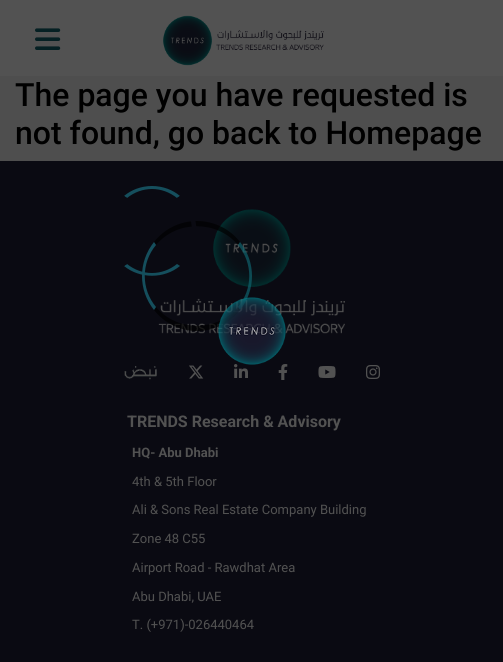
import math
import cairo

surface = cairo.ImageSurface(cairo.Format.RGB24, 503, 662)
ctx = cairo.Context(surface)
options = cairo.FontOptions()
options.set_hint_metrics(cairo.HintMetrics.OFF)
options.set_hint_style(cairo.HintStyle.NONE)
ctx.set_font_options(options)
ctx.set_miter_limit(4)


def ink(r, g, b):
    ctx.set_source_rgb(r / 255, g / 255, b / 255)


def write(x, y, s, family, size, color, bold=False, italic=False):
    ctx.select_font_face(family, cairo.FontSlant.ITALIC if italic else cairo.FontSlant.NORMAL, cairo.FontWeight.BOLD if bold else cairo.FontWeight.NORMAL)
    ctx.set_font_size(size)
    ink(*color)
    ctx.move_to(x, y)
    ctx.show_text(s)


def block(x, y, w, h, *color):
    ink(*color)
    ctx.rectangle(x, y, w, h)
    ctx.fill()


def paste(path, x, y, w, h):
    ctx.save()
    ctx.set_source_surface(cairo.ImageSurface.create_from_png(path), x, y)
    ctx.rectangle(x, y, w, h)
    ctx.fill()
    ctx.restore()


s1 = dict(family="Roboto Medium", size=32, color=(0, 0, 0))
s2 = dict(family="Roboto", size=16, color=(82, 82, 82), bold=True)
s3 = dict(family="Roboto", size=13, color=(82, 82, 82), bold=True)
s4 = dict(family="Roboto", size=13, color=(82, 82, 82))

ink(78, 78, 78)
ctx.paint()
block(0, 0, 503, 76, 82, 82, 82)
paste("pic1.png", 35, 28, 26, 22)
paste("pic2.png", 163, 15, 161, 51)
write(15, 106, "The page you have requested is", **s1)
write(15, 144, "not found, go back to Homepage", **s1)
block(0, 161, 503, 501, 10, 10, 18)
paste("pic4.png", 158, 209, 187, 125)
ctx.set_source_rgba(0, 0, 0, 0.68)
ctx.new_path()
ctx.move_to(197, 221)
ctx.curve_to(180, 221, 164, 229, 154, 242)
ctx.line_to(156, 245)
ctx.curve_to(177, 220, 217, 220, 238, 245)
ctx.line_to(240, 242)
ctx.curve_to(230, 229, 214, 221, 197, 221)
ctx.close_path()
ctx.fill()
ctx.set_source_rgba(0.063, 0.396, 0.431, 0.68)
ctx.new_path()
ctx.move_to(240, 242)
ctx.curve_to(256, 262, 256, 290, 240, 310)
ctx.line_to(238, 307)
ctx.curve_to(253, 289, 253, 263, 238, 245)
ctx.close_path()
ctx.fill()
ctx.set_source_rgba(0, 0, 0, 0.68)
ctx.new_path()
ctx.move_to(240, 310)
ctx.curve_to(218, 338, 176, 338, 154, 310)
ctx.line_to(156, 307)
ctx.curve_to(177, 332, 217, 332, 238, 307)
ctx.close_path()
ctx.fill()
ink(21, 79, 93)
ctx.new_path()
ctx.move_to(154, 310)
ctx.curve_to(138, 290, 138, 262, 154, 242)
ctx.line_to(156, 245)
ctx.curve_to(141, 263, 141, 289, 156, 307)
ctx.close_path()
ctx.fill()
ctx.new_path()
ctx.move_to(152, 186)
ctx.curve_to(141, 186, 131, 190, 124, 196)
ctx.line_to(127, 198)
ctx.curve_to(142, 186, 162, 186, 177, 198)
ctx.line_to(180, 196)
ctx.curve_to(173, 190, 163, 186, 152, 186)
ctx.close_path()
ctx.fill()
ink(10, 10, 18)
ctx.new_path()
ctx.move_to(180, 196)
ctx.curve_to(202, 214, 202, 248, 180, 266)
ctx.line_to(177, 264)
ctx.curve_to(197, 247, 197, 215, 177, 198)
ctx.close_path()
ctx.fill()
ink(21, 79, 93)
ctx.new_path()
ctx.move_to(180, 266)
ctx.curve_to(164, 279, 140, 279, 124, 266)
ctx.line_to(127, 264)
ctx.curve_to(142, 276, 162, 276, 177, 264)
ctx.close_path()
ctx.fill()
ink(10, 10, 18)
ctx.new_path()
ctx.move_to(124, 266)
ctx.curve_to(102, 248, 102, 214, 124, 196)
ctx.line_to(127, 198)
ctx.curve_to(107, 215, 107, 247, 127, 264)
ctx.close_path()
ctx.fill()
paste("pic7.png", 234, 364, 14, 14)
paste("pic8.png", 278, 364, 10, 16)
paste("pic3.png", 218, 297, 68, 68)
paste("pic5.png", 124, 366, 33, 14)
paste("pic6.png", 189, 365, 15, 14)
paste("pic9.png", 318, 366, 18, 12)
paste("pic10.png", 366, 365, 14, 14)
write(127, 427, "TRENDS Research & Advisory", **s2)
write(132, 457, "HQ- Abu Dhabi", **s3)
write(132, 486, "4th & 5th Floor", **s4)
write(132, 514, "Ali & Sons Real Estate Company Building", **s4)
write(132, 543, "Zone 48 C55", **s4)
write(132, 572, "Airport Road - Rawdhat Area", **s4)
write(132, 601, "Abu Dhabi, UAE", **s4)
write(132, 629, "T. (+971)-026440464", **s4)
surface.write_to_png("screenshot.png")
